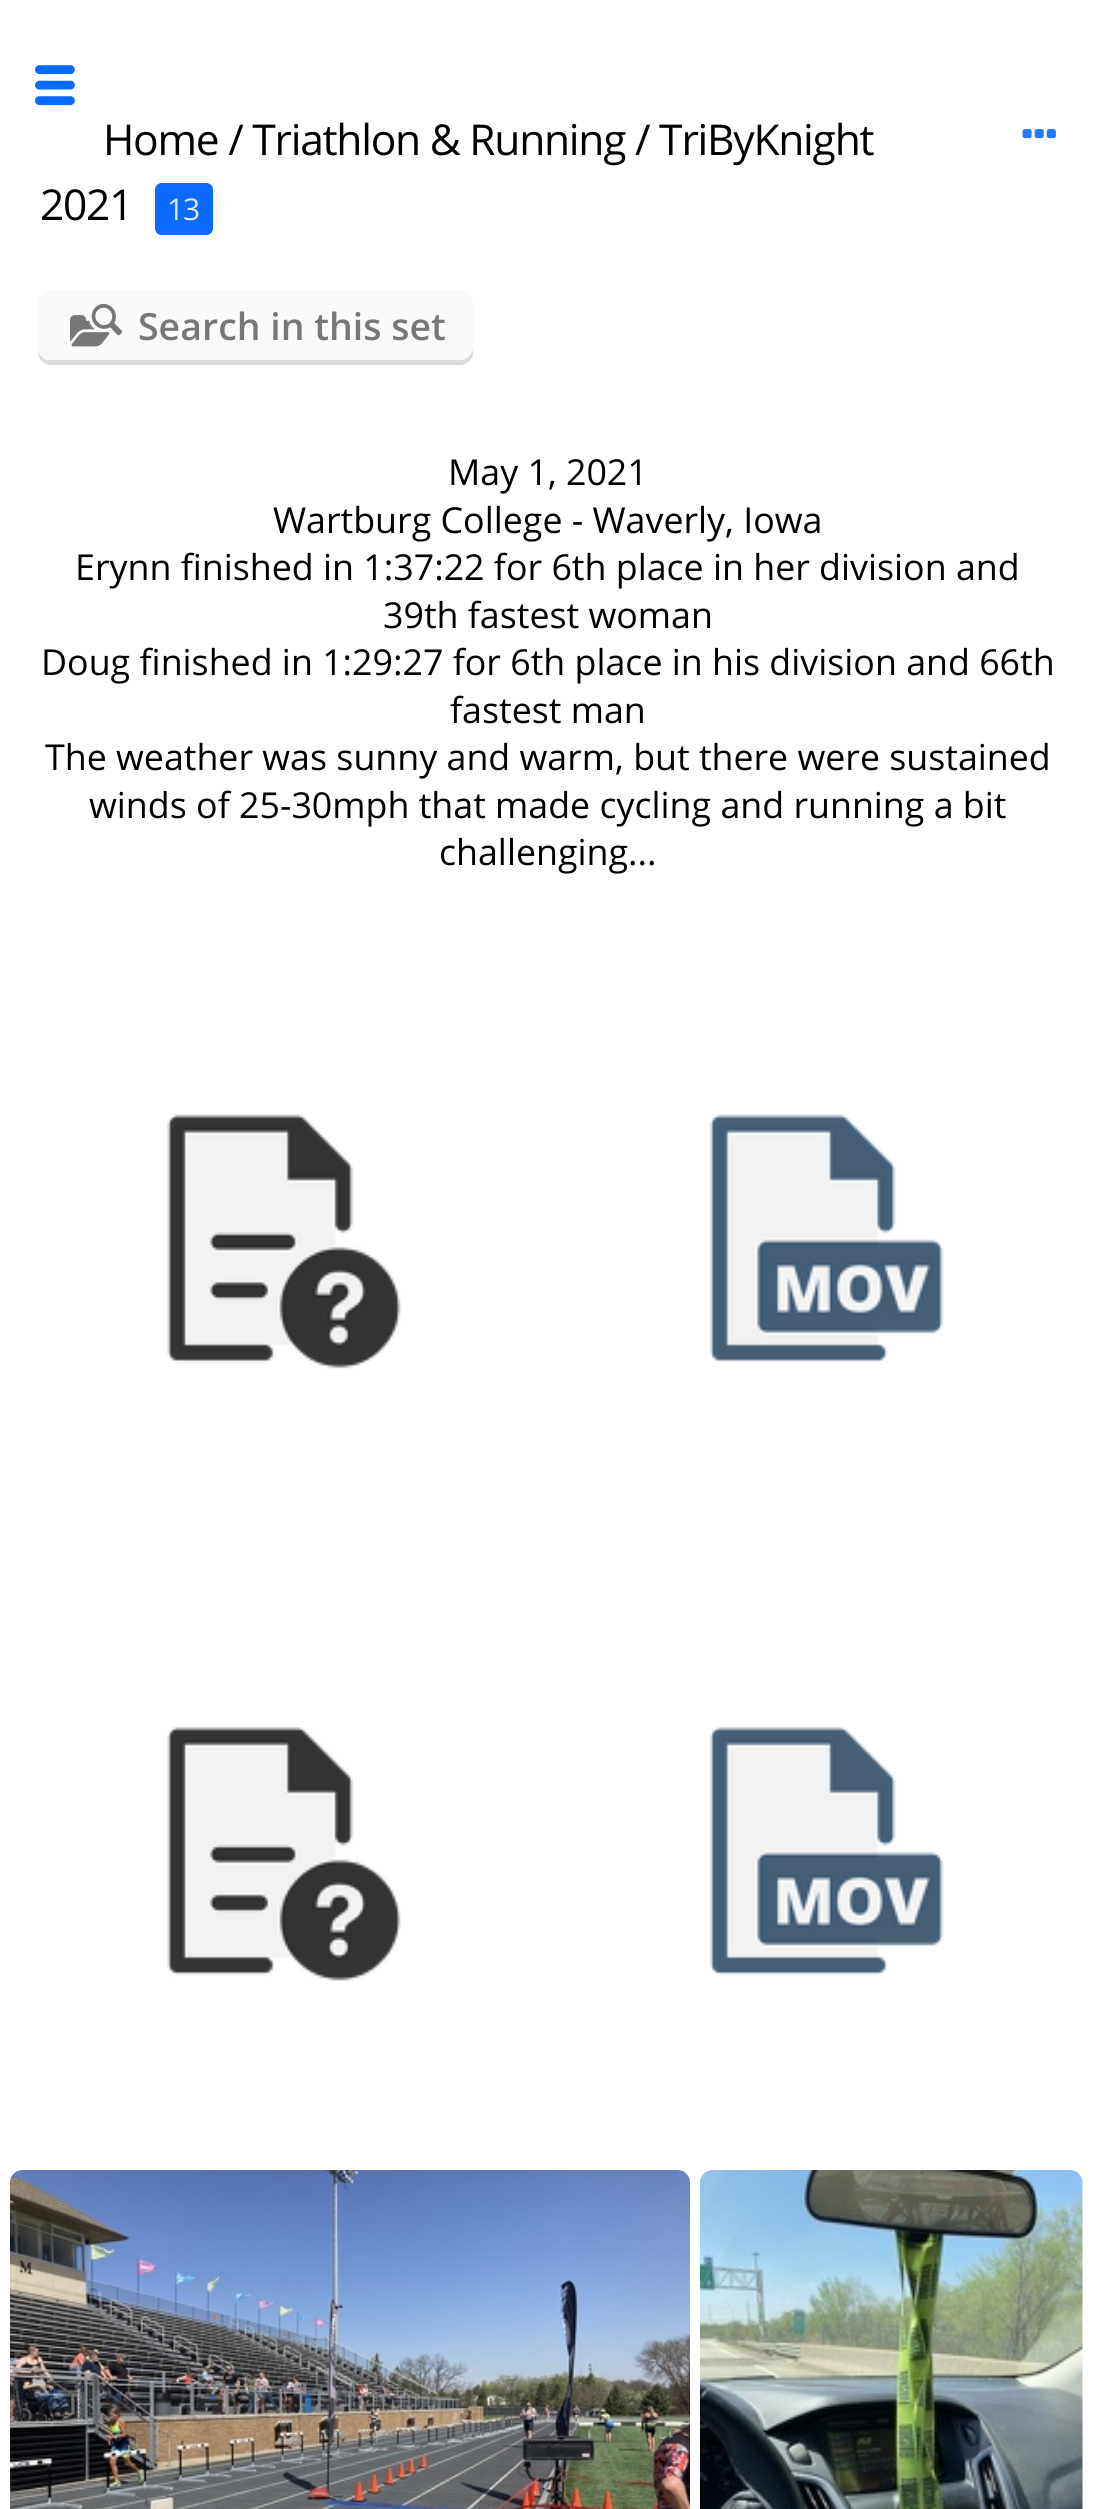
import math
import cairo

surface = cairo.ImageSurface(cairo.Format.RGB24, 1093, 2509)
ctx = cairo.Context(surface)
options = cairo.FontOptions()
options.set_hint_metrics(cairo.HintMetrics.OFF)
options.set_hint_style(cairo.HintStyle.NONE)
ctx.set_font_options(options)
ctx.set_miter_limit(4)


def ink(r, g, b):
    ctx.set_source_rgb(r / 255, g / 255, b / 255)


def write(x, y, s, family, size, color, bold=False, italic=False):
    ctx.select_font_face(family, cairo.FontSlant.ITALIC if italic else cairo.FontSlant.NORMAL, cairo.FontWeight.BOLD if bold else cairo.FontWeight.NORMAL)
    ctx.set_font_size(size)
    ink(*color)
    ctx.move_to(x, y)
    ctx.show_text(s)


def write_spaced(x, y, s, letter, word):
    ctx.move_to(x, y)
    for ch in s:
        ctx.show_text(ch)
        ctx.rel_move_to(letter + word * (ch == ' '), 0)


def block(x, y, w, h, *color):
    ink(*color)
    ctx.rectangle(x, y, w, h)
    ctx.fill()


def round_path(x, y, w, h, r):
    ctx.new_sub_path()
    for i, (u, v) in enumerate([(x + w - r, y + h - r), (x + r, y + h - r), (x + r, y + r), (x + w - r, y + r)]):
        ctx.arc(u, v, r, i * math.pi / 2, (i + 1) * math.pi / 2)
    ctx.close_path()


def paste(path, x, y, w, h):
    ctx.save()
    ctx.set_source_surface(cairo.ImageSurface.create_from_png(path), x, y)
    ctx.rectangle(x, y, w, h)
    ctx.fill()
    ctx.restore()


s1 = dict(family="Open Sans SemiBold", size=37.5, color=(119, 119, 119))
s2 = dict(family="Open Sans", size=35.75, color=(0, 0, 0))

ink(255, 255, 255)
ctx.paint()
paste("pic1.png", 35, 65, 40, 41)
ctx.select_font_face("Open Sans")
ctx.set_font_size(42.5)
ink(0, 0, 0)
write_spaced(103, 155, "Home / Triathlon & Running / TriByKnight", -1.25, 0)
write_spaced(40, 220, "2021", -1.25, 0)
block(168, 183, 32, 52, 11, 106, 255)
ctx.set_font_size(30)
ink(232, 232, 234)
write_spaced(167, 220, "13", -1.25, 0)
ink(11, 106, 255)
ctx.new_path()
ctx.move_to(161.5, 183)
ctx.line_to(168, 183)
ctx.line_to(168, 235)
ctx.line_to(161.5, 235)
ctx.curve_to(158, 235, 155, 232, 155, 228.5)
ctx.line_to(155, 189.5)
ctx.curve_to(155, 186, 158, 183, 161.5, 183)
ctx.close_path()
ctx.fill()
ctx.new_path()
ctx.move_to(200, 183)
ctx.line_to(206.5, 183)
ctx.curve_to(210, 183, 213, 186, 213, 189.5)
ctx.line_to(213, 228.5)
ctx.curve_to(213, 232, 210, 235, 206.5, 235)
ctx.line_to(200, 235)
ctx.close_path()
ctx.fill()
paste("pic2.png", 1022, 129, 34, 10)
ink(219, 219, 219)
ctx.new_path()
ctx.move_to(38, 351)
ctx.line_to(38, 352)
ctx.curve_to(38, 359, 44, 365, 51, 365)
ctx.line_to(460, 365)
ctx.curve_to(467, 365, 473, 359, 473, 352)
ctx.line_to(473, 308)
ctx.line_to(472, 304)
ctx.line_to(472, 348)
ctx.curve_to(472, 354, 467, 360, 460, 360)
ctx.line_to(50, 360)
ctx.curve_to(44, 360, 40, 356, 38, 351)
ctx.close_path()
ctx.fill()
ink(250, 250, 250)
round_path(38, 290, 435, 70, 13)
ctx.fill()
paste("pic3.png", 70, 303, 53, 44)
write(138, 340, "Search in this set", **s1)
write(448, 485, "May 1, 2021", **s2)
write(273, 533, "Wartburg College - Waverly, Iowa", **s2)
write(75, 580, "Erynn finished in 1:37:22 for 6th place in her division and", **s2)
write(383, 628, "39th fastest woman", **s2)
write(41, 675, "Doug finished in 1:29:27 for 6th place in his division and 66th", **s2)
write(450, 723, "fastest man", **s2)
write(45, 770, "The weather was sunny and warm, but there were sustained", **s2)
write(89, 818, "winds of 25-30mph that made cycling and running a bit", **s2)
write(439, 865, "challenging...", **s2)
paste("pic4.png", 167, 1114, 234, 255)
paste("pic5.png", 709, 1114, 235, 249)
paste("pic6.png", 167, 1726, 234, 255)
paste("pic7.png", 709, 1726, 235, 250)
paste("pic8.png", 10, 2170, 680, 339)
paste("pic9.png", 700, 2170, 383, 339)
surface.write_to_png("screenshot.png")
